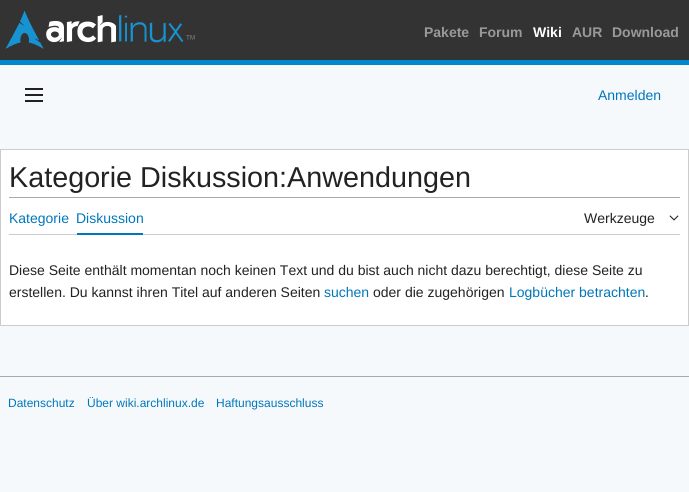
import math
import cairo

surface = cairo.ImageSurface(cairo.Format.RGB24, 689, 492)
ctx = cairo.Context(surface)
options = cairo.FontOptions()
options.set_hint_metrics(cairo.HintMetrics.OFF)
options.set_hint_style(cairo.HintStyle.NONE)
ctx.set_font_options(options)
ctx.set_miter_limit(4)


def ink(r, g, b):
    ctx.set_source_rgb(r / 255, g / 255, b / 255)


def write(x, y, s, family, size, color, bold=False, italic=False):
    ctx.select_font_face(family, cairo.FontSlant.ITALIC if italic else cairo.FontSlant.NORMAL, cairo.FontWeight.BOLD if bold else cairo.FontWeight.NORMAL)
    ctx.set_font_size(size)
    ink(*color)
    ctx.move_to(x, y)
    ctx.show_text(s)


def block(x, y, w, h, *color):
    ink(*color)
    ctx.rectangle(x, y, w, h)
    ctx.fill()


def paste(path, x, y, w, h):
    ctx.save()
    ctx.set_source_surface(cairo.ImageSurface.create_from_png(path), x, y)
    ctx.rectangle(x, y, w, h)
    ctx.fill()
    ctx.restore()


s1 = dict(family="Liberation Sans", size=14, color=(153, 153, 153), bold=True)
s2 = dict(family="Liberation Sans", size=14, color=(255, 255, 255), bold=True)
s3 = dict(family="Liberation Sans", size=14, color=(0, 119, 187))
s4 = dict(family="Liberation Sans", size=28.75, color=(34, 34, 34))
s5 = dict(family="Liberation Sans", size=14, color=(34, 34, 34))
s6 = dict(family="Liberation Sans", size=12, color=(0, 119, 187))

ink(246, 249, 252)
ctx.paint()
block(0, 0, 689, 60, 51, 51, 51)
block(0, 60, 689, 5, 0, 136, 204)
paste("pic1.png", 5, 10, 190, 39)
write(424, 37, "Pakete", **s1)
write(479, 37, "Forum", **s1)
write(533, 37, "Wiki", **s2)
write(572, 37, "AUR", **s1)
write(612, 37, "Download", **s1)
paste("pic2.png", 25, 88, 18, 14)
write(598, 100, "Anmelden", **s3)
ink(255, 255, 255)
ctx.rectangle(0.5, 149.5, 688, 176)
ctx.fill_preserve()
ink(204, 204, 204)
ctx.set_line_width(1)
ctx.stroke()
write(9, 187, "Kategorie Diskussion:Anwendungen", **s4)
block(9, 197, 671, 1, 162, 169, 177)
block(9, 234, 671, 1, 200, 204, 209)
write(9, 223, "Kategorie", **s3)
block(77, 233, 66, 2, 0, 119, 187)
write(76, 223, "Diskussion", **s3)
write(584, 223, "Werkzeuge", **s5)
paste("pic3.png", 669, 215, 10, 6)
write(9, 275, "Diese Seite enthält momentan noch keinen Text und du bist auch nicht dazu berechtigt, diese Seite zu", **s5)
write(9, 297, "erstellen. Du kannst ihren Titel auf anderen Seiten", **s5)
write(324, 297, "suchen", **s3)
write(373, 297, "oder die zugehörigen", **s5)
write(509, 297, "Logbücher betrachten", **s3)
write(645, 297, ".", **s5)
block(0, 376, 689, 1, 162, 169, 177)
write(8, 407, "Datenschutz", **s6)
write(87, 407, "Über wiki.archlinux.de", **s6)
write(216, 407, "Haftungsausschluss", **s6)
surface.write_to_png("screenshot.png")
